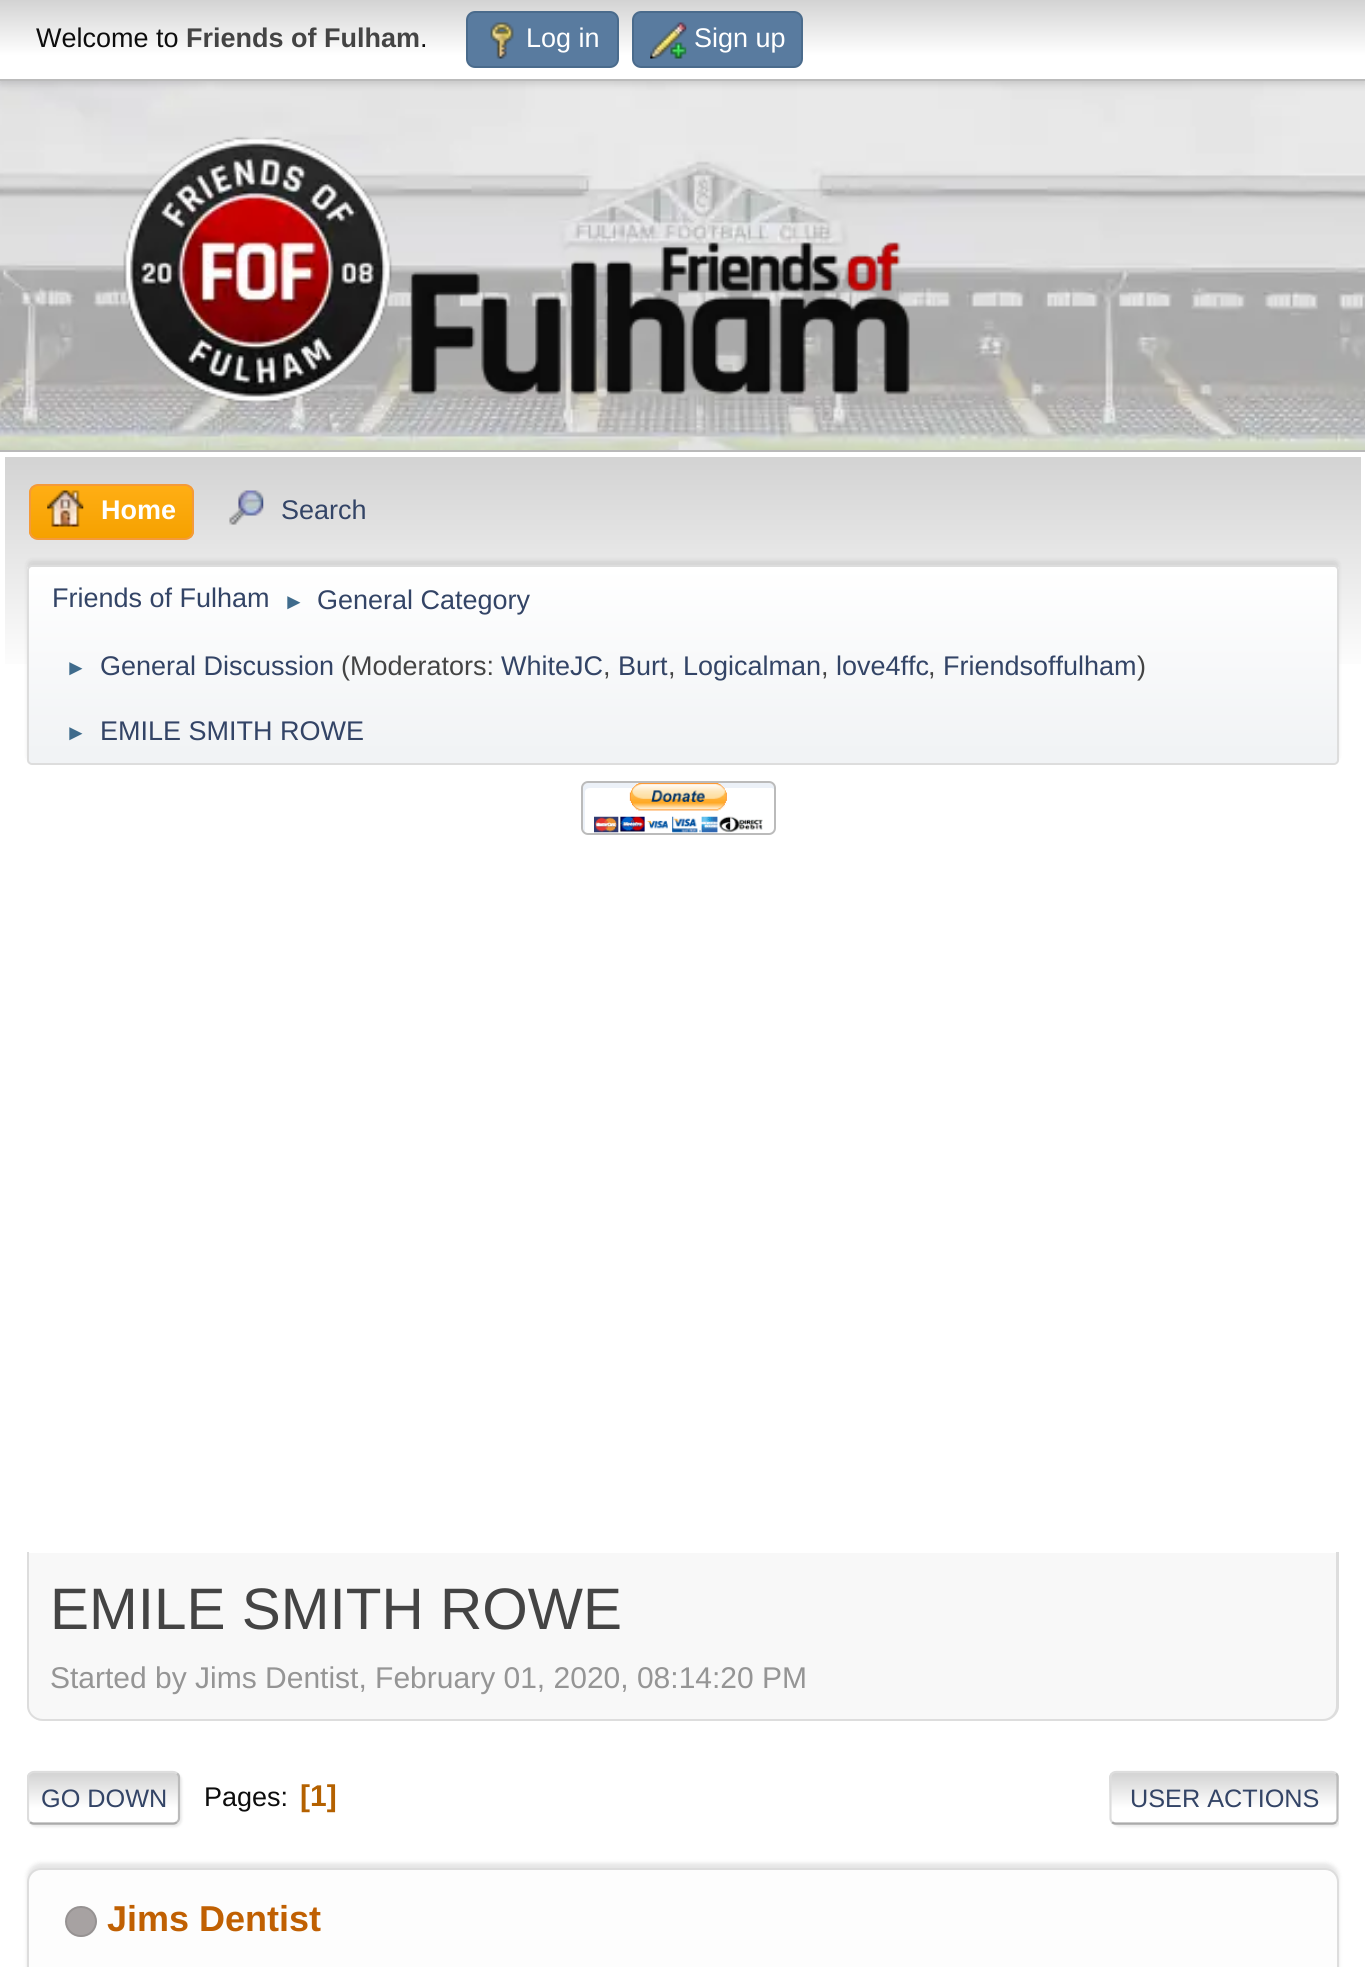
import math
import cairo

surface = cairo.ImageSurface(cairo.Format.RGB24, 1365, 1967)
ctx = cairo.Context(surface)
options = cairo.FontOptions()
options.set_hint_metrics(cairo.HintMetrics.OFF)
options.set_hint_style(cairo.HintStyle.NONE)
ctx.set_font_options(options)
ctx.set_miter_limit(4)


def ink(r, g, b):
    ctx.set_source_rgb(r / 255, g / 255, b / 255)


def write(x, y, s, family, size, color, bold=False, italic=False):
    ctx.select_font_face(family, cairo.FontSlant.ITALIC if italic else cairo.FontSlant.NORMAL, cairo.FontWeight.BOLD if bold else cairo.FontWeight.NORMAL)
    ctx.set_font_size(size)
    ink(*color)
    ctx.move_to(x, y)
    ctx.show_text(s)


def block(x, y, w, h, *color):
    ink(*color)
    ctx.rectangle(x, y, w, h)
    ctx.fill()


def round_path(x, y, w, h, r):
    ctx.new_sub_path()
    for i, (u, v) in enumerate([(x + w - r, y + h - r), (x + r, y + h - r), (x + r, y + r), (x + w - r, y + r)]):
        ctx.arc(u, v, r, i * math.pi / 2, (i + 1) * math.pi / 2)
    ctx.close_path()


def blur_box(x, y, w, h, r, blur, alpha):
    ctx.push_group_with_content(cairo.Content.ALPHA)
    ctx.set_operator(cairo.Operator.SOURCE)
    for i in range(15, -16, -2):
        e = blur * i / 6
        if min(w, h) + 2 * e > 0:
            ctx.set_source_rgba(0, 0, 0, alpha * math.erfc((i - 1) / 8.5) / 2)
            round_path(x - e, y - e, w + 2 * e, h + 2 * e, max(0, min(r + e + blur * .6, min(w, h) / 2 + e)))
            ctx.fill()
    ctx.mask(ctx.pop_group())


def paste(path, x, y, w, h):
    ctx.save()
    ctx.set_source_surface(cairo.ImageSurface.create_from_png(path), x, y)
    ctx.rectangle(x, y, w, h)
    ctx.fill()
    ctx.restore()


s1 = dict(family="Liberation Sans", size=27, color=(13, 13, 13))
s2 = dict(family="Liberation Sans", size=27, color=(68, 68, 68), bold=True)
s3 = dict(family="Liberation Sans", size=27, color=(255, 255, 255))
s4 = dict(family="Liberation Sans", size=27, color=(255, 255, 255), bold=True)
s5 = dict(family="Liberation Sans", size=27, color=(51, 68, 102))
s6 = dict(family="Liberation Sans", size=22, color=(63, 107, 140))
s7 = dict(family="Liberation Sans", size=27, color=(68, 68, 68))
s8 = dict(family="Liberation Sans", size=58.5, color=(68, 68, 68))
s9 = dict(family="Liberation Sans", size=30, color=(149, 149, 149))
s10 = dict(family="Liberation Sans", size=25.25, color=(51, 68, 102))
s11 = dict(family="Liberation Sans", size=30, color=(180, 97, 0), bold=True)
s12 = dict(family="Liberation Sans", size=36, color=(192, 96, 2), bold=True)

ink(255, 255, 255)
ctx.paint()
paste("pic1.png", 0, 81, 1365, 369)
ink(0, 0, 0)
blur_box(0, 2, 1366, 81, 0, 4.5, 0.16)
gradient = cairo.LinearGradient(683, 0, 683, 79)
gradient.add_color_stop_rgba(0, 0.827, 0.827, 0.827, 1)
gradient.add_color_stop_rgba(0.7, 1, 1, 1, 1)
ctx.set_source(gradient)
ctx.rectangle(0, 0, 1365, 79)
ctx.fill()
block(0, 79, 1365, 2, 187, 187, 187)
write(36, 47, "Welcome to", **s1)
write(186, 47, "Friends of Fulham", **s2)
write(420, 47, ".", **s1)
ink(89, 123, 159)
round_path(467, 12, 151, 55, 8)
ctx.fill_preserve()
ink(74, 107, 140)
ctx.stroke()
paste("pic2.png", 490, 22, 24, 37)
write(526, 47, "Log in", **s3)
ink(89, 123, 159)
round_path(633, 12, 169, 55, 8)
ctx.fill_preserve()
ink(74, 107, 140)
ctx.stroke()
paste("pic3.png", 650, 22, 37, 37)
write(694, 47, "Sign up", **s3)
paste("pic4.png", 123, 136, 787, 268)
block(0, 450, 1365, 2, 184, 184, 184)
gradient = cairo.LinearGradient(683, 457, 683, 770)
gradient.add_color_stop_rgba(0, 0.827, 0.827, 0.827, 1)
gradient.add_color_stop_rgba(0.7, 1, 1, 1, 1)
ctx.set_source(gradient)
ctx.rectangle(5, 457, 1356, 207)
ctx.fill()
ctx.save()
round_path(29, 484, 165, 56, 9)
ctx.clip()
gradient = cairo.LinearGradient(111, 486, 111, 538)
gradient.add_color_stop_rgba(0, 1, 0.682, 0.078, 1)
gradient.add_color_stop_rgba(1, 0.961, 0.631, 0, 1)
ctx.set_source(gradient)
ctx.rectangle(29, 486, 165, 52)
ctx.fill()
ctx.restore()
round_path(30, 485, 163, 54, 8)
ink(244, 154, 58)
ctx.stroke()
paste("pic5.png", 47, 490, 37, 37)
write(101, 519, "Home", **s4)
paste("pic6.png", 229, 490, 35, 35)
write(281, 519, "Search", **s5)
ink(0, 0, 0)
blur_box(27, 560, 1312, 201, 5, 2, 0.08)
ctx.save()
round_path(27, 565, 1312, 200, 5)
ctx.clip()
gradient = cairo.LinearGradient(683, 567, 683, 763)
gradient.add_color_stop_rgba(0, 1, 1, 1, 1)
gradient.add_color_stop_rgba(0.95, 0.945, 0.953, 0.961, 1)
ctx.set_source(gradient)
ctx.rectangle(27, 567, 1312, 196)
ctx.fill()
ctx.restore()
round_path(28, 566, 1310, 198, 4)
ink(221, 221, 221)
ctx.stroke()
write(52, 607, "Friends of Fulham", **s5)
write(283, 609, "►", **s6)
write(317, 609, "General Category", **s5)
write(65, 675, "►", **s6)
write(100, 675, "General Discussion", **s5)
write(341, 675, "(Moderators:", **s7)
write(501, 675, "WhiteJC", **s5)
write(603, 675, ",", **s7)
write(618, 675, "Burt", **s5)
write(668, 675, ",", **s7)
write(683, 675, "Logicalman", **s5)
write(821, 675, ",", **s7)
write(836, 675, "love4ffc", **s5)
write(928, 675, ",", **s7)
write(943, 675, "Friendsoffulham", **s5)
write(1137, 675, ")", **s7)
write(65, 740, "►", **s6)
write(100, 740, "EMILE SMITH ROWE", **s5)
ink(236, 241, 248)
ctx.new_path()
ctx.move_to(590, 788)
ctx.line_to(772, 788)
ctx.line_to(774, 789)
ctx.line_to(774, 788)
ctx.curve_to(774, 785, 772, 783, 769, 783)
ctx.line_to(588, 783)
ctx.curve_to(585, 783, 583, 785, 583, 788)
ctx.line_to(583, 828)
ctx.curve_to(583, 830, 584, 831, 585, 832)
ctx.line_to(585, 792)
ctx.curve_to(585, 790, 587, 788, 590, 788)
ctx.close_path()
ctx.fill()
round_path(582, 782, 193, 52, 6)
ink(187, 187, 187)
ctx.stroke()
paste("pic7.png", 594, 783, 169, 50)
ink(248, 248, 248)
ctx.new_path()
ctx.move_to(27, 1553)
ctx.line_to(1339, 1553)
ctx.line_to(1339, 1705)
ctx.curve_to(1339, 1714, 1332, 1721, 1323, 1721)
ctx.line_to(43, 1721)
ctx.curve_to(34, 1721, 27, 1714, 27, 1705)
ctx.close_path()
ctx.fill()
ink(221, 221, 221)
ctx.set_fill_rule(cairo.FillRule.EVEN_ODD)
ctx.new_path()
ctx.move_to(27, 1552)
ctx.line_to(1339, 1552)
ctx.line_to(1339, 1706)
ctx.curve_to(1339, 1714, 1332, 1721, 1323, 1721)
ctx.line_to(43, 1721)
ctx.curve_to(34, 1721, 27, 1714, 27, 1706)
ctx.close_path()
ctx.move_to(29, 1552)
ctx.line_to(1336, 1552)
ctx.line_to(1336, 1706)
ctx.curve_to(1336, 1713, 1330, 1719, 1323, 1719)
ctx.line_to(43, 1719)
ctx.curve_to(35, 1719, 29, 1713, 29, 1706)
ctx.close_path()
ctx.fill()
write(50, 1629, "EMILE SMITH ROWE", **s8)
write(50, 1688, "Started by Jims Dentist, February 01, 2020, 08:14:20 PM", **s9)
ink(221, 221, 221)
blur_box(29, 1773, 153, 54, 7, 1, 0.57)
ctx.save()
ctx.set_fill_rule(cairo.FillRule.WINDING)
round_path(27, 1771, 153, 54, 7)
ctx.clip()
gradient = cairo.LinearGradient(104, 1773, 104, 1823)
gradient.add_color_stop_rgba(0, 0.827, 0.827, 0.827, 1)
gradient.add_color_stop_rgba(0.7, 1, 1, 1, 1)
ctx.set_source(gradient)
ctx.rectangle(27, 1773, 153, 50)
ctx.fill()
gradient = cairo.LinearGradient(104, 1823, 104, 1872)
gradient.add_color_stop_rgba(0, 0.827, 0.827, 0.827, 1)
gradient.add_color_stop_rgba(0.7, 1, 1, 1, 1)
ctx.set_source(gradient)
ctx.rectangle(27, 1823, 153, 2)
ctx.fill()
ctx.restore()
ctx.new_path()
ctx.move_to(177, 1773.5)
ctx.curve_to(178.5, 1774.5, 179, 1776, 179, 1777.5)
ctx.line_to(179, 1818)
ctx.curve_to(179, 1819.5, 178.5, 1821, 177, 1822)
ink(187, 187, 187)
ctx.set_line_width(2.2)
ctx.stroke()
ctx.new_path()
ctx.move_to(177, 1822)
ctx.curve_to(176, 1823, 174.5, 1823.5, 173, 1823.5)
ctx.line_to(34, 1823.5)
ctx.curve_to(32.5, 1823.5, 31, 1823, 30, 1822)
ink(170, 170, 170)
ctx.stroke()
ctx.save()
ctx.set_fill_rule(cairo.FillRule.WINDING)
ctx.rectangle(27, 1755, 1312, 86)
ctx.clip()
ctx.new_path()
ctx.move_to(30, 1822)
ctx.curve_to(28.5, 1821, 28, 1819.5, 28, 1818)
ctx.line_to(28, 1777.5)
ctx.curve_to(28, 1776, 28.5, 1774.5, 30, 1773.5)
ctx.curve_to(31, 1772.5, 32.5, 1772, 34, 1772)
ctx.line_to(173, 1772)
ctx.curve_to(174.5, 1772, 176, 1772.5, 177, 1773.5)
ink(221, 221, 221)
ctx.stroke()
ctx.restore()
write(41, 1807, "GO DOWN", **s10)
write(204, 1806, "Pages:", **s1)
write(300, 1806, "[1]", **s11)
ctx.save()
ctx.set_fill_rule(cairo.FillRule.WINDING)
ctx.rectangle(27, 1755, 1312, 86)
ctx.clip()
ink(221, 221, 221)
blur_box(1112, 1773, 229, 54, 7, 1, 0.57)
ctx.restore()
ctx.save()
ctx.set_fill_rule(cairo.FillRule.WINDING)
round_path(1109, 1771, 230, 54, 7)
ctx.clip()
gradient = cairo.LinearGradient(1224, 1773, 1224, 1823)
gradient.add_color_stop_rgba(0, 0.827, 0.827, 0.827, 1)
gradient.add_color_stop_rgba(0.7, 1, 1, 1, 1)
ctx.set_source(gradient)
ctx.rectangle(1109, 1773, 230, 50)
ctx.fill()
gradient = cairo.LinearGradient(1224, 1823, 1224, 1872)
gradient.add_color_stop_rgba(0, 0.827, 0.827, 0.827, 1)
gradient.add_color_stop_rgba(0.7, 1, 1, 1, 1)
ctx.set_source(gradient)
ctx.rectangle(1109, 1823, 230, 2)
ctx.fill()
ctx.restore()
ctx.new_path()
ctx.move_to(1336, 1773.5)
ctx.curve_to(1337, 1774.5, 1337.5, 1776, 1337.5, 1777.5)
ctx.line_to(1337.5, 1818)
ctx.curve_to(1337.5, 1819.5, 1337, 1821, 1336, 1822)
ink(187, 187, 187)
ctx.stroke()
ctx.new_path()
ctx.move_to(1336, 1822)
ctx.curve_to(1335, 1823, 1333.5, 1823.5, 1332, 1823.5)
ctx.line_to(1116, 1823.5)
ctx.curve_to(1114.5, 1823.5, 1113, 1823, 1112, 1822)
ink(170, 170, 170)
ctx.stroke()
ctx.new_path()
ctx.move_to(1112, 1822)
ctx.curve_to(1111, 1821, 1110.5, 1819.5, 1110.5, 1818)
ctx.line_to(1110.5, 1777.5)
ctx.curve_to(1110.5, 1776, 1111, 1774.5, 1112, 1773.5)
ctx.curve_to(1113, 1772.5, 1114.5, 1772, 1116, 1772)
ctx.line_to(1332, 1772)
ctx.curve_to(1333.5, 1772, 1335, 1772.5, 1336, 1773.5)
ink(221, 221, 221)
ctx.stroke()
write(1130, 1807, "USER ACTIONS", **s10)
ink(0, 0, 0)
blur_box(27, 1863, 1312, 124, 14, 2, 0.1)
ink(253, 253, 253)
round_path(28, 1869, 1310, 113, 13)
ctx.fill_preserve()
ink(221, 221, 221)
ctx.set_line_width(2)
ctx.stroke()
ink(167, 162, 162)
round_path(66, 1907, 30, 29, 14.5)
ctx.fill_preserve()
ink(150, 146, 146)
ctx.stroke()
write(107, 1931, "Jims Dentist", **s12)
surface.write_to_png("screenshot.png")
